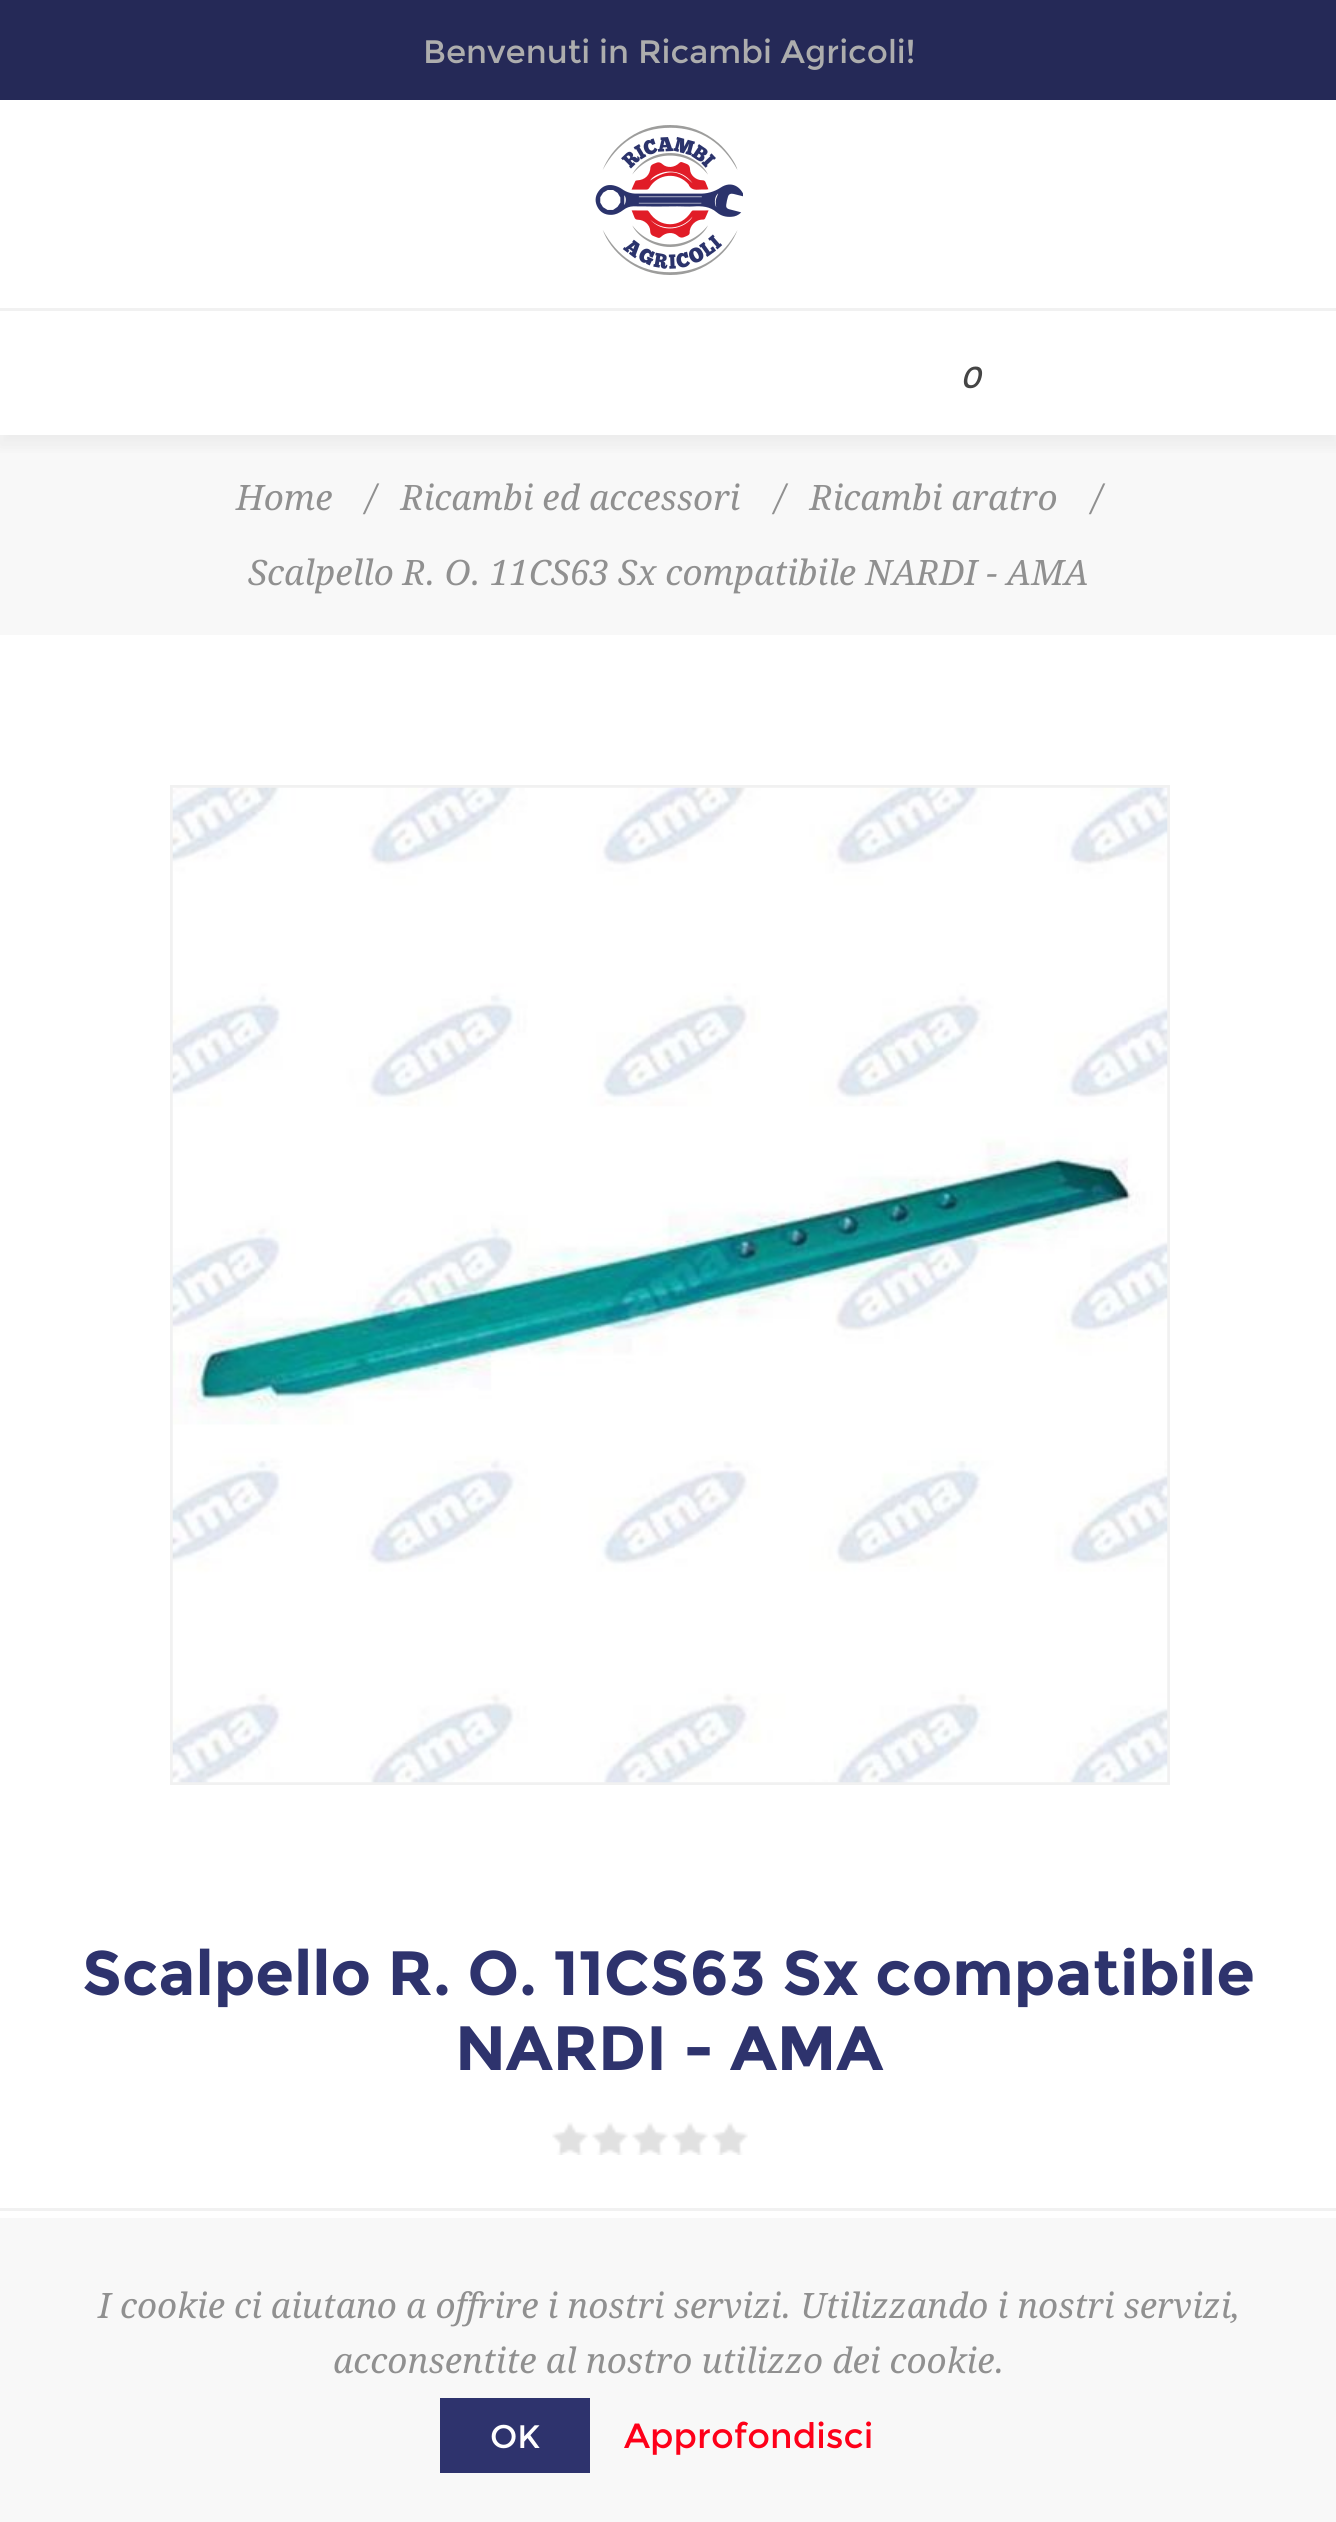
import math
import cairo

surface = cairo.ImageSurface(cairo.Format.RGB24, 1336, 2522)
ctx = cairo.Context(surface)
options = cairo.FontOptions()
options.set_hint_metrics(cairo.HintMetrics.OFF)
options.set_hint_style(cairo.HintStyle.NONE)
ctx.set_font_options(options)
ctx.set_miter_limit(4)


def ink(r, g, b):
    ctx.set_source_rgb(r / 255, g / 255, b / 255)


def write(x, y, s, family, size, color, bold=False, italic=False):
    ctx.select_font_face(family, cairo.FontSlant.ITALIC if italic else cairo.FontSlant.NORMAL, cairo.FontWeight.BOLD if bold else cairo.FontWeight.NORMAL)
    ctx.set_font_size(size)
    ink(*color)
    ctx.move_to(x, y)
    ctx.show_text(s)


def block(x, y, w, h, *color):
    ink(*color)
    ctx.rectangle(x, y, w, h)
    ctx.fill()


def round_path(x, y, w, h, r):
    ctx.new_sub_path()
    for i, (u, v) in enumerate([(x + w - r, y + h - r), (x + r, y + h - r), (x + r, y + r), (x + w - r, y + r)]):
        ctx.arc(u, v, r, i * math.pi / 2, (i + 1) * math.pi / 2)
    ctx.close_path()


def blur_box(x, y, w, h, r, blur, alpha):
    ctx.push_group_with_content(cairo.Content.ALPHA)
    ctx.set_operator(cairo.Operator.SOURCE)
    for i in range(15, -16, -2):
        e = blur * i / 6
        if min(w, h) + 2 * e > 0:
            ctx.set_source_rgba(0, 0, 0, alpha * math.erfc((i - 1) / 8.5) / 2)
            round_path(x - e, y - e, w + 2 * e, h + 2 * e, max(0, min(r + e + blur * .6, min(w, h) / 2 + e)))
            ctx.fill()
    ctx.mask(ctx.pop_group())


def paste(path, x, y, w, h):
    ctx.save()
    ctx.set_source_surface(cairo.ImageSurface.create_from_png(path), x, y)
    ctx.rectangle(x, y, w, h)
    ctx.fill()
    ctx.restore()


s1 = dict(family="Montserrat", size=32.5, color=(173, 173, 173))
s2 = dict(family="Montserrat", size=30, color=(69, 69, 69), italic=True)
s3 = dict(family="Droid Serif", size=35, color=(144, 144, 144), italic=True)
s4 = dict(family="Montserrat", size=62.5, color=(46, 51, 109), bold=True)
s5 = dict(family="Montserrat", size=32.5, color=(255, 255, 255))
s6 = dict(family="Montserrat", size=35, color=(254, 0, 25))

ink(255, 255, 255)
ctx.paint()
block(0, 0, 1336, 100, 37, 41, 87)
write(423, 63, "Benvenuti in Ricambi Agricoli!", **s1)
paste("pic1.png", 595, 125, 148, 150)
block(0, 435, 1336, 200, 248, 248, 248)
ctx.save()
ctx.rectangle(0, 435, 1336, 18)
ctx.clip()
ink(150, 150, 150)
blur_box(0, 318, 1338, 127, 0, 7.5, 0.13)
ctx.restore()
block(0, 308, 1336, 3, 241, 241, 241)
write(960, 388, "0", **s2)
write(236, 510, "Home", **s3)
write(366, 510, "/", **s3)
write(401, 510, "Ricambi ed accessori", **s3)
write(775, 510, "/", **s3)
write(810, 510, "Ricambi aratro", **s3)
write(1092, 510, "/", **s3)
write(248, 585, "Scalpello R. O. 11CS63 Sx compatibile NARDI - AMA", **s3)
ctx.rectangle(171.5, 786.5, 997, 997)
ink(241, 241, 241)
ctx.set_line_width(3)
ctx.stroke()
paste("pic2.png", 172, 787, 996, 996)
write(82, 1995, "Scalpello R. O. 11CS63 Sx compatibile", **s4)
write(455, 2070, "NARDI - AMA", **s4)
paste("pic3.png", 552, 2122, 196, 33)
block(0, 2218, 1336, 304, 248, 248, 248)
block(0, 2208, 1336, 3, 241, 241, 241)
write(98, 2318, "I cookie ci aiutano a offrire i nostri servizi. Utilizzando i nostri servizi,", **s3)
write(333, 2373, "acconsentite al nostro utilizzo dei cookie.", **s3)
block(440, 2398, 150, 75, 46, 51, 109)
write(490, 2448, "OK", **s5)
write(624, 2448, "Approfondisci", **s6)
surface.write_to_png("screenshot.png")
